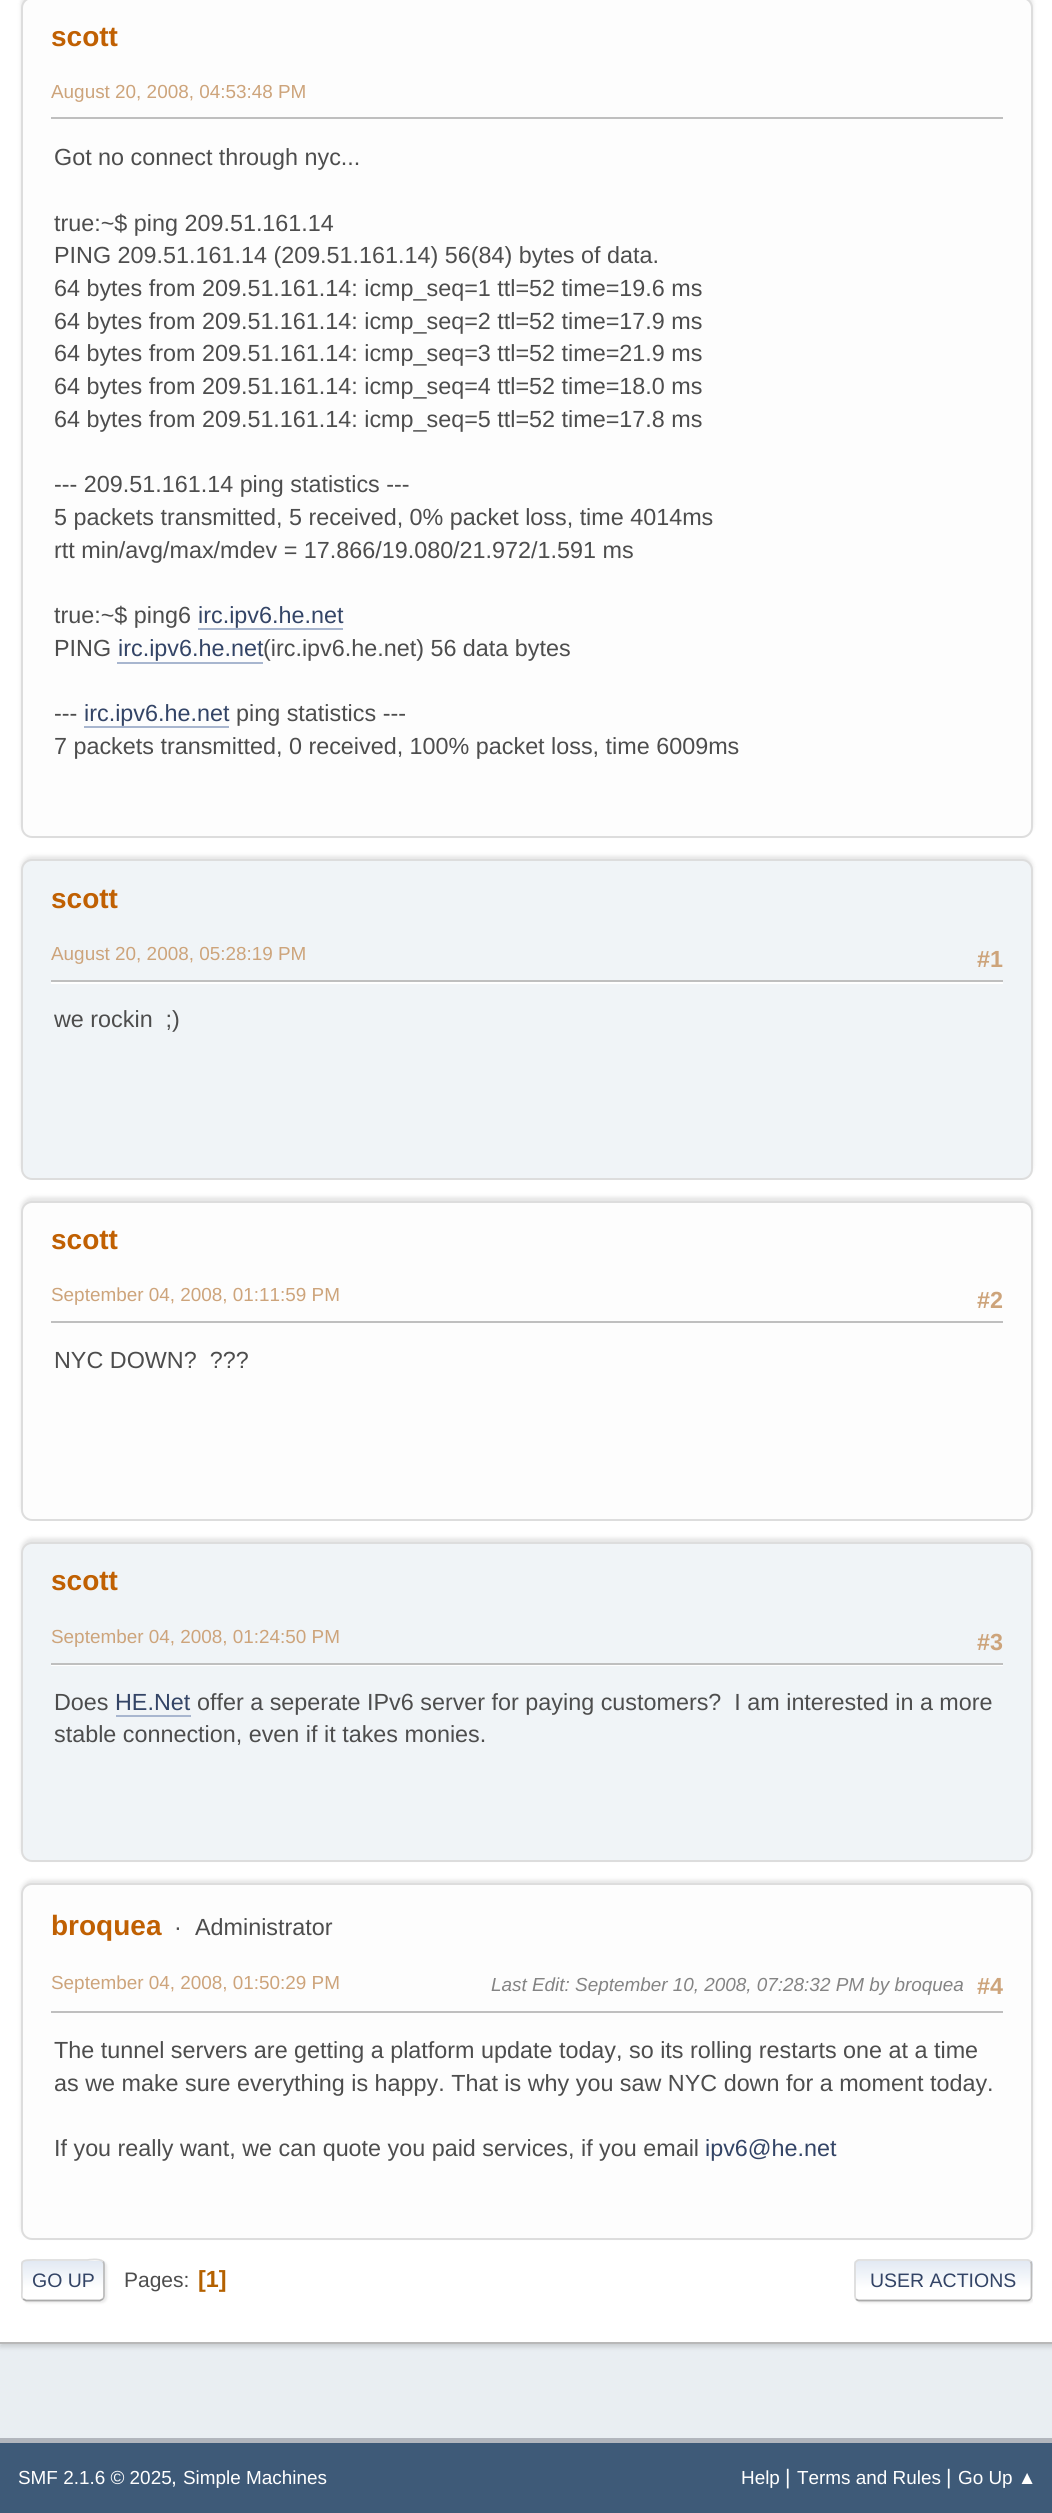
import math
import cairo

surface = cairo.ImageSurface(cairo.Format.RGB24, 1052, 2513)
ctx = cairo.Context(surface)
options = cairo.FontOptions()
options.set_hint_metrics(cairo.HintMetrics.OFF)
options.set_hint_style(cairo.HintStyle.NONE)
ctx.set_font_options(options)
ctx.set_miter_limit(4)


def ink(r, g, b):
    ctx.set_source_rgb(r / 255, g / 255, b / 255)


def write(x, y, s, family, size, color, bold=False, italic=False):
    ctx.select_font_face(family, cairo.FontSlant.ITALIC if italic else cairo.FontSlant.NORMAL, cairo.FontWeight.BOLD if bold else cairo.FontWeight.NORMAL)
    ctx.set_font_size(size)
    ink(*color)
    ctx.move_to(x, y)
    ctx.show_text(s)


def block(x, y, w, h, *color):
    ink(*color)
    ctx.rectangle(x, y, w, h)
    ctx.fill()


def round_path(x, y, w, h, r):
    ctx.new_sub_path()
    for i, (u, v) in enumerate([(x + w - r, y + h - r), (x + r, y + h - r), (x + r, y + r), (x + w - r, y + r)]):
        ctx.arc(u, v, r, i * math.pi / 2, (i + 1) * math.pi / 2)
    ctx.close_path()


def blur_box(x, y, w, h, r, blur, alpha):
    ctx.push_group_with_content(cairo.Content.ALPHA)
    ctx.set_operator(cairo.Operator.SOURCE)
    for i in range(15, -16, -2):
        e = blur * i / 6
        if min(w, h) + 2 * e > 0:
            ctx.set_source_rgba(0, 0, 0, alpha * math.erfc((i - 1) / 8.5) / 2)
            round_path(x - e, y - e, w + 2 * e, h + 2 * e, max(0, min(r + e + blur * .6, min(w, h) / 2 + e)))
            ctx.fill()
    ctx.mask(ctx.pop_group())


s1 = dict(family="Liberation Sans", size=28, color=(192, 96, 2), bold=True)
s2 = dict(family="Liberation Sans", size=18.9, color=(205, 164, 123))
s3 = dict(family="Liberation Sans", size=23.35, color=(77, 77, 77))
s4 = dict(family="Liberation Sans", size=23.35, color=(51, 68, 102))
s5 = dict(family="Liberation Sans", size=23.35, color=(205, 164, 123), bold=True)
s6 = dict(family="Liberation Sans", size=18.9, color=(132, 132, 132), italic=True)
s7 = dict(family="Liberation Sans", size=19.5, color=(51, 68, 102))
s8 = dict(family="Liberation Sans", size=21, color=(77, 77, 77))
s9 = dict(family="Liberation Sans", size=23.35, color=(180, 97, 0), bold=True)
s10 = dict(family="Liberation Sans", size=18.9, color=(255, 255, 255))
s11 = dict(family="Liberation Sans", size=21, color=(255, 255, 255))

ink(233, 238, 242)
ctx.paint()
ink(0, 0, 0)
blur_box(0, -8, 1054, 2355, 0, 2.5, 0.14)
block(0, 0, 1052, 2342, 255, 255, 255)
block(0, 2342, 1052, 2, 184, 184, 184)
ink(0, 0, 0)
blur_box(21, -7, 1012, 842, 11, 2, 0.1)
ink(253, 253, 253)
round_path(22, -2, 1010, 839, 10)
ctx.fill_preserve()
ink(221, 221, 221)
ctx.stroke()
write(51, 46, "scott", **s1)
write(51, 98, "August 20, 2008, 04:53:48 PM", **s2)
block(51, 117, 952, 2, 191, 191, 191)
write(54, 165, "Got no connect through nyc...", **s3)
write(54, 231, "true:~$ ping 209.51.161.14", **s3)
write(54, 263, "PING 209.51.161.14 (209.51.161.14) 56(84) bytes of data.", **s3)
write(54, 296, "64 bytes from 209.51.161.14: icmp_seq=1 ttl=52 time=19.6 ms", **s3)
write(54, 329, "64 bytes from 209.51.161.14: icmp_seq=2 ttl=52 time=17.9 ms", **s3)
write(54, 361, "64 bytes from 209.51.161.14: icmp_seq=3 ttl=52 time=21.9 ms", **s3)
write(54, 394, "64 bytes from 209.51.161.14: icmp_seq=4 ttl=52 time=18.0 ms", **s3)
write(54, 427, "64 bytes from 209.51.161.14: icmp_seq=5 ttl=52 time=17.8 ms", **s3)
write(54, 492, "--- 209.51.161.14 ping statistics ---", **s3)
write(54, 525, "5 packets transmitted, 5 received, 0% packet loss, time 4014ms", **s3)
write(54, 558, "rtt min/avg/max/mdev = 17.866/19.080/21.972/1.591 ms", **s3)
write(54, 623, "true:~$ ping6", **s3)
write(198, 623, "irc.ipv6.he.net", **s4)
block(198, 628, 145, 2, 168, 182, 207)
write(54, 656, "PING", **s3)
write(118, 656, "irc.ipv6.he.net", **s4)
block(117, 662, 146, 2, 168, 182, 207)
write(263, 656, "(irc.ipv6.he.net) 56 data bytes", **s3)
write(54, 721, "---", **s3)
write(84, 721, "irc.ipv6.he.net", **s4)
block(84, 726, 145, 2, 168, 182, 207)
write(236, 721, "ping statistics ---", **s3)
write(54, 754, "7 packets transmitted, 0 received, 100% packet loss, time 6009ms", **s3)
ink(0, 0, 0)
blur_box(21, 856, 1012, 320, 11, 2, 0.1)
ink(240, 244, 247)
round_path(22, 860, 1010, 319, 10)
ctx.fill_preserve()
ink(221, 221, 221)
ctx.stroke()
write(51, 908, "scott", **s1)
write(51, 960, "August 20, 2008, 05:28:19 PM", **s2)
write(977, 967, "#1", **s5)
block(51, 982, 952, 2, 255, 255, 255)
block(51, 980, 952, 2, 191, 191, 191)
write(54, 1027, "we rockin  ;)", **s3)
ink(0, 0, 0)
blur_box(21, 1197, 1012, 320, 11, 2, 0.1)
ink(253, 253, 253)
round_path(22, 1202, 1010, 318, 10)
ctx.fill_preserve()
ink(221, 221, 221)
ctx.stroke()
write(51, 1249, "scott", **s1)
write(51, 1301, "September 04, 2008, 01:11:59 PM", **s2)
write(977, 1308, "#2", **s5)
block(51, 1321, 952, 2, 191, 191, 191)
write(54, 1368, "NYC DOWN?  ???", **s3)
ink(0, 0, 0)
blur_box(21, 1538, 1012, 321, 11, 2, 0.1)
ink(240, 244, 247)
round_path(22, 1543, 1010, 318, 10)
ctx.fill_preserve()
ink(221, 221, 221)
ctx.stroke()
write(51, 1590, "scott", **s1)
write(51, 1643, "September 04, 2008, 01:24:50 PM", **s2)
write(977, 1650, "#3", **s5)
block(51, 1665, 952, 1, 255, 255, 255)
block(51, 1663, 952, 2, 191, 191, 191)
write(54, 1710, "Does", **s3)
write(115, 1710, "HE.Net", **s4)
block(116, 1715, 75, 2, 168, 182, 207)
write(197, 1710, "offer a seperate IPv6 server for paying customers?  I am interested in a more", **s3)
write(54, 1742, "stable connection, even if it takes monies.", **s3)
ink(0, 0, 0)
blur_box(21, 1880, 1012, 357, 11, 2, 0.1)
ink(253, 253, 253)
round_path(22, 1884, 1010, 355, 10)
ctx.fill_preserve()
ink(221, 221, 221)
ctx.stroke()
write(51, 1935, "broquea", **s1)
write(174, 1935, "·", **s3)
write(195, 1935, "Administrator", **s3)
write(51, 1989, "September 04, 2008, 01:50:29 PM", **s2)
write(491, 1991, "Last Edit: September 10, 2008, 07:28:32 PM by broquea", **s6)
write(977, 1994, "#4", **s5)
block(51, 2011, 952, 2, 191, 191, 191)
write(54, 2058, "The tunnel servers are getting a platform update today, so its rolling restarts one at a time", **s3)
write(54, 2091, "as we make sure everything is happy. That is why you saw NYC down for a moment today.", **s3)
write(54, 2156, "If you really want, we can quote you paid services, if you email", **s3)
write(705, 2156, "ipv6@he.net", **s4)
ink(221, 221, 221)
blur_box(23, 2261, 84, 42, 5, 1, 0.57)
ink(255, 255, 255)
round_path(21, 2259, 84, 42, 5)
ctx.fill()
ctx.save()
round_path(21, 2259, 84, 42, 5)
ctx.clip()
gradient = cairo.LinearGradient(63, 2261, 63, 2300)
gradient.add_color_stop_rgba(0, 0.886, 0.914, 0.953, 1)
gradient.add_color_stop_rgba(0.7, 1, 1, 1, 1)
ctx.set_source(gradient)
ctx.rectangle(21, 2261, 84, 39)
ctx.fill()
ctx.restore()
ctx.new_path()
ctx.move_to(103, 2261.5)
ctx.curve_to(103.5, 2262, 104, 2263.5, 104, 2264.5)
ctx.line_to(104, 2296)
ctx.curve_to(104, 2297, 103.5, 2298.5, 103, 2299)
ink(187, 187, 187)
ctx.set_line_width(1.8)
ctx.stroke()
ctx.new_path()
ctx.move_to(103, 2299)
ctx.line_to(100, 2300.5)
ctx.line_to(26, 2300.5)
ctx.line_to(23, 2299)
ink(170, 170, 170)
ctx.stroke()
ctx.save()
ctx.rectangle(21, 2247, 1012, 67)
ctx.clip()
ctx.new_path()
ctx.move_to(23, 2299)
ctx.curve_to(21, 2297, 22, 2293, 22, 2291)
ctx.line_to(22, 2280)
ctx.curve_to(22, 2259, 18, 2260, 38.5, 2260)
ctx.line_to(87.5, 2260)
ctx.curve_to(87.5, 2260, 99.5, 2258, 103, 2261.5)
ink(221, 221, 221)
ctx.stroke()
ctx.restore()
write(32, 2287, "GO UP", **s7)
write(124, 2287, "Pages:", **s8)
write(198, 2287, "[1]", **s9)
ctx.save()
ctx.rectangle(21, 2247, 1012, 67)
ctx.clip()
ink(221, 221, 221)
blur_box(856, 2261, 178, 42, 5, 1, 0.57)
ctx.restore()
ink(255, 255, 255)
round_path(854, 2259, 179, 42, 5)
ctx.fill()
ctx.save()
round_path(854, 2259, 179, 42, 5)
ctx.clip()
gradient = cairo.LinearGradient(943, 2261, 943, 2300)
gradient.add_color_stop_rgba(0, 0.886, 0.914, 0.953, 1)
gradient.add_color_stop_rgba(0.7, 1, 1, 1, 1)
ctx.set_source(gradient)
ctx.rectangle(854, 2261, 179, 39)
ctx.fill()
ctx.restore()
ctx.new_path()
ctx.move_to(1030.5, 2261.5)
ctx.curve_to(1031, 2262, 1031.5, 2263.5, 1031.5, 2264.5)
ctx.line_to(1031.5, 2296)
ctx.curve_to(1031.5, 2297, 1031, 2298.5, 1030.5, 2299)
ink(187, 187, 187)
ctx.stroke()
ctx.new_path()
ctx.move_to(1030.5, 2299)
ctx.curve_to(1029.5, 2300, 1028.5, 2300.5, 1027, 2300.5)
ctx.line_to(859, 2300.5)
ctx.curve_to(858, 2300.5, 857, 2300, 856, 2299)
ink(170, 170, 170)
ctx.stroke()
ctx.new_path()
ctx.move_to(856, 2299)
ctx.curve_to(855.5, 2298.5, 855, 2297, 855, 2296)
ctx.line_to(855, 2264.5)
ctx.curve_to(855, 2263.5, 855.5, 2262, 856, 2261.5)
ctx.curve_to(857, 2260.5, 858, 2260, 859, 2260)
ctx.line_to(1027, 2260)
ctx.curve_to(1028.5, 2260, 1029.5, 2260.5, 1030.5, 2261.5)
ink(221, 221, 221)
ctx.stroke()
write(870, 2287, "USER ACTIONS", **s7)
block(0, 2443, 1052, 70, 62, 90, 120)
block(0, 2438, 1052, 5, 178, 182, 189)
write(18, 2484, "SMF 2.1.6 © 2025", **s10)
write(171, 2484, ",", **s11)
write(183, 2484, "Simple Machines", **s10)
write(741, 2484, "Help", **s10)
write(785, 2484, "|", **s11)
write(797, 2484, "Terms and Rules", **s10)
write(946, 2484, "|", **s11)
write(958, 2484, "Go Up ▲", **s10)
surface.write_to_png("screenshot.png")
